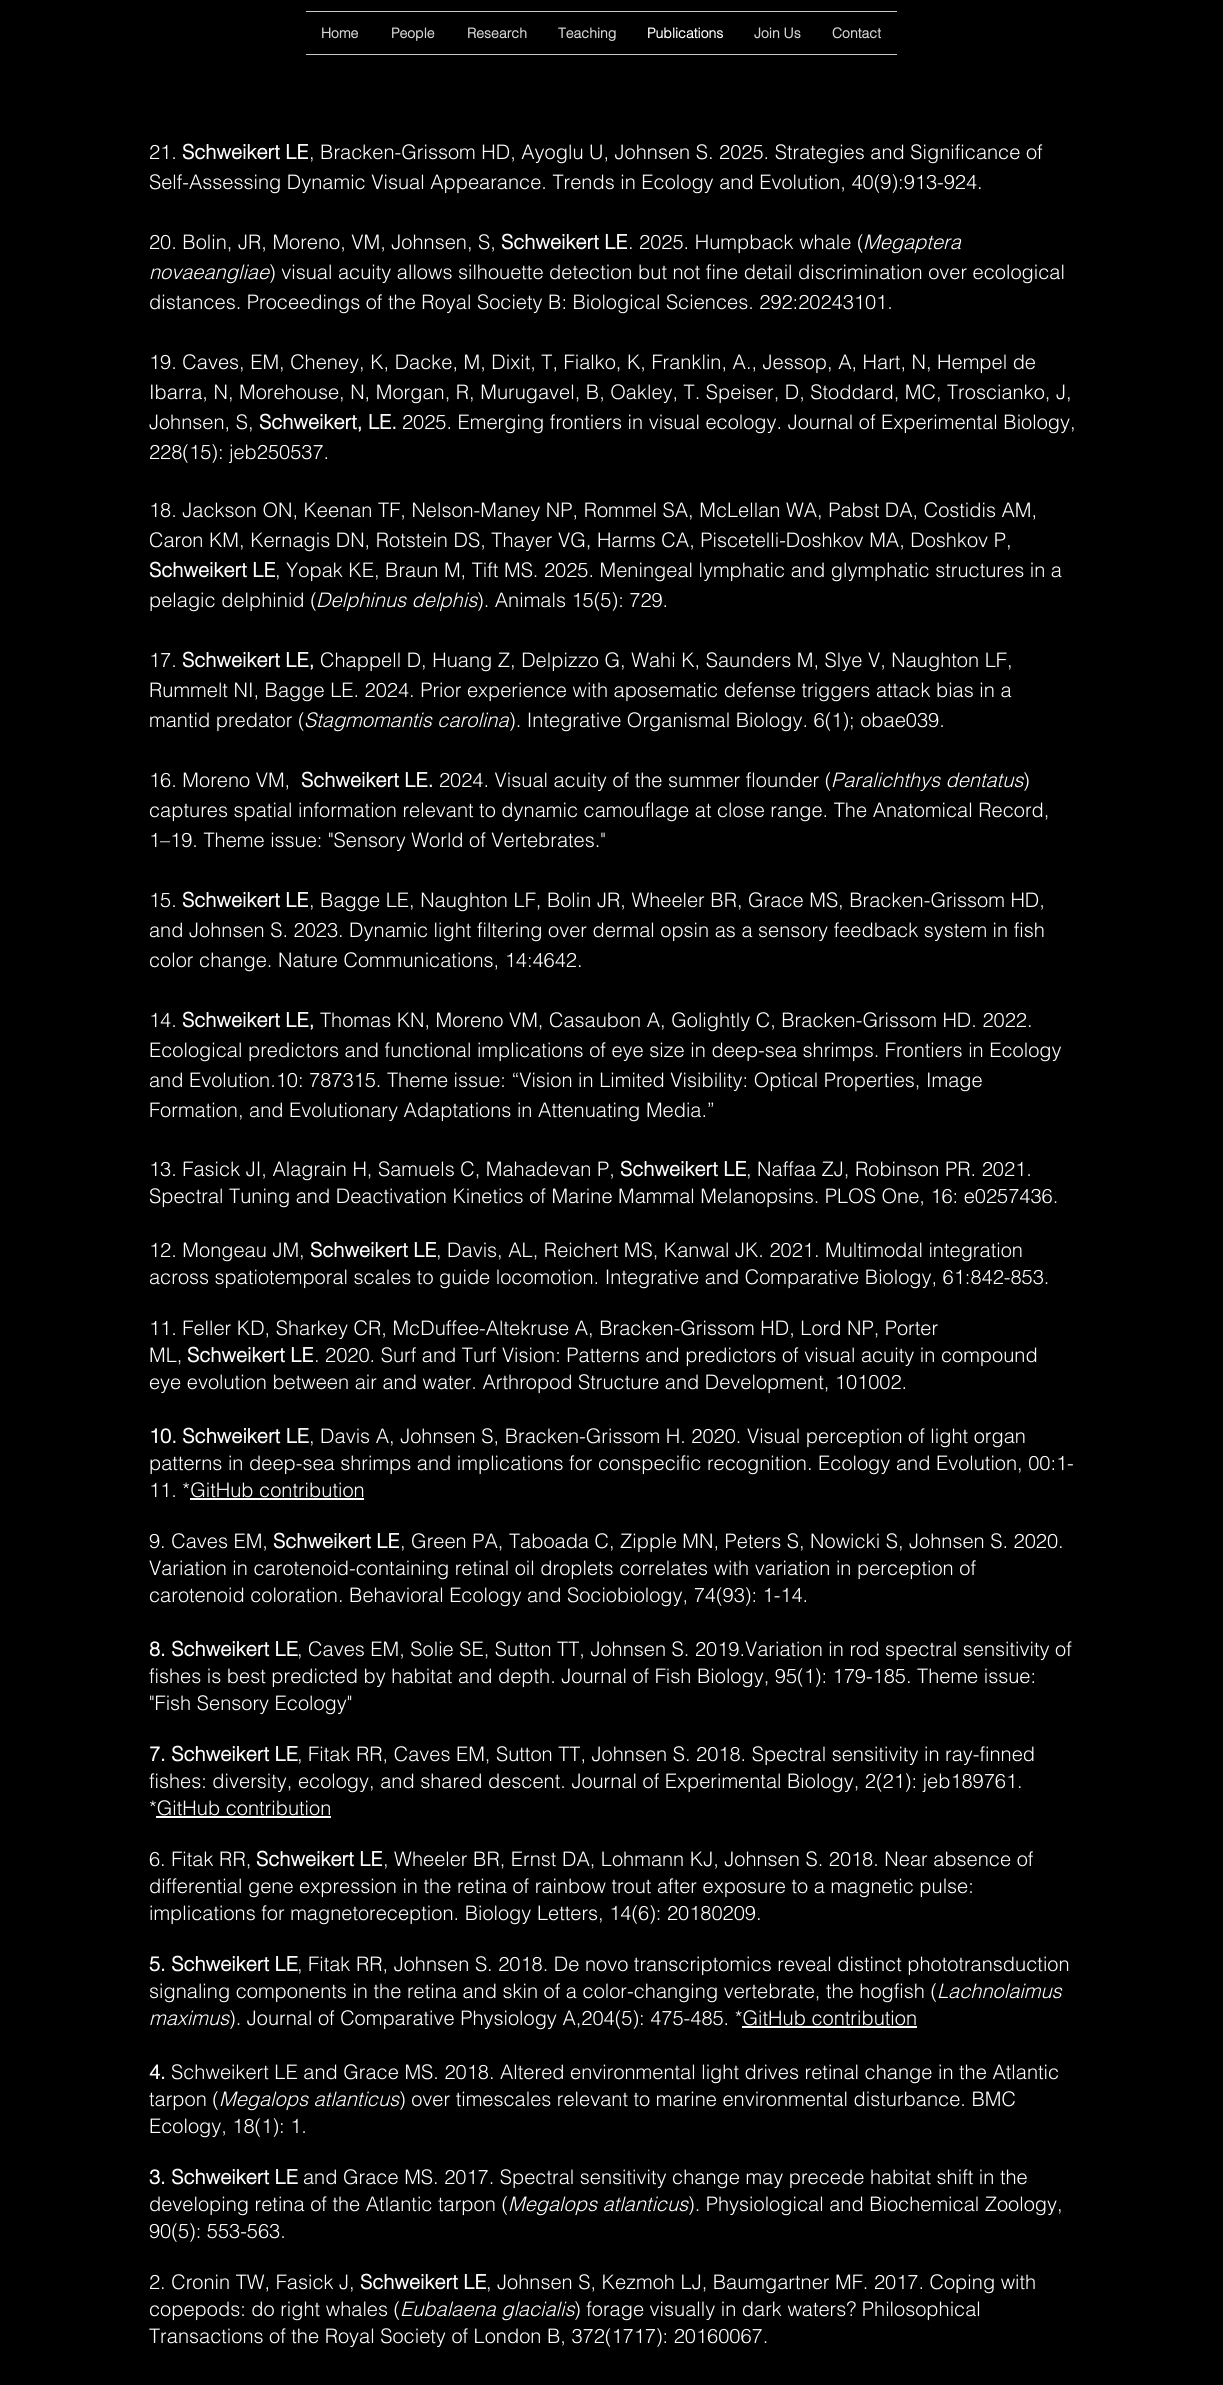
import math
import cairo

surface = cairo.ImageSurface(cairo.Format.RGB24, 1223, 2385)
ctx = cairo.Context(surface)
options = cairo.FontOptions()
options.set_hint_metrics(cairo.HintMetrics.OFF)
options.set_hint_style(cairo.HintStyle.NONE)
ctx.set_font_options(options)
ctx.set_miter_limit(4)


def ink(r, g, b):
    ctx.set_source_rgb(r / 255, g / 255, b / 255)


def write(x, y, s, family, size, color, bold=False, italic=False):
    ctx.select_font_face(family, cairo.FontSlant.ITALIC if italic else cairo.FontSlant.NORMAL, cairo.FontWeight.BOLD if bold else cairo.FontWeight.NORMAL)
    ctx.set_font_size(size)
    ink(*color)
    ctx.move_to(x, y)
    ctx.show_text(s)


def block(x, y, w, h, *color):
    ink(*color)
    ctx.rectangle(x, y, w, h)
    ctx.fill()


s1 = dict(family="helvetica", size=14, color=(212, 212, 212), bold=True)
s2 = dict(family="helvetica", size=14, color=(255, 255, 255), bold=True)
s3 = dict(family="helvetica Light", size=20, color=(255, 255, 255))
s4 = dict(family="helvetica", size=20, color=(255, 255, 255), bold=True)
s5 = dict(family="helvetica Light", size=20, color=(255, 255, 255), italic=True)

ink(0, 0, 0)
ctx.paint()
block(306, 11, 591, 1, 202, 202, 202)
block(306, 54, 591, 1, 202, 202, 202)
write(321, 38, "Home", **s1)
write(391, 38, "People", **s1)
write(467, 38, "Research", **s1)
write(558, 38, "Teaching", **s1)
write(647, 38, "Publications", **s2)
write(754, 38, "Join Us", **s1)
write(832, 38, "Contact", **s1)
write(149, 159, "21.", **s3)
write(182, 159, "Schweikert LE", **s4)
write(309, 159, ", Bracken-Grissom HD, Ayoglu U, Johnsen S. 2025. Strategies and Significance of", **s3)
write(149, 189, "Self-Assessing Dynamic Visual Appearance. Trends in Ecology and Evolution, 40(9):913-924.", **s3)
write(149, 249, "20. Bolin, JR, Moreno, VM, Johnsen, S,", **s3)
write(501, 249, "Schweikert LE", **s4)
write(628, 249, ". 2025. Humpback whale (", **s3)
write(863, 249, "Megaptera", **s5)
write(149, 279, "novaeangliae", **s5)
write(269, 279, ") visual acuity allows silhouette detection but not fine detail discrimination over ecological", **s3)
write(149, 309, "distances. Proceedings of the Royal Society B: Biological Sciences. 292:20243101.", **s3)
write(149, 369, "19. Caves, EM, Cheney, K, Dacke, M, Dixit, T, Fialko, K, Franklin, A., Jessop, A, Hart, N, Hempel de", **s3)
write(149, 399, "Ibarra, N, Morehouse, N, Morgan, R, Murugavel, B, Oakley, T. Speiser, D, Stoddard, MC, Troscianko, J,", **s3)
write(149, 429, "Johnsen, S,", **s3)
write(259, 429, "Schweikert, LE.", **s4)
write(402, 429, "2025. Emerging frontiers in visual ecology. Journal of Experimental Biology,", **s3)
write(149, 459, "228(15): jeb250537.", **s3)
write(149, 517, "18. Jackson ON, Keenan TF, Nelson-Maney NP, Rommel SA, McLellan WA, Pabst DA, Costidis AM,", **s3)
write(149, 547, "Caron KM, Kernagis DN, Rotstein DS, Thayer VG, Harms CA, Piscetelli-Doshkov MA, Doshkov P,", **s3)
write(149, 577, "Schweikert LE", **s4)
write(275, 577, ", Yopak KE, Braun M, Tift MS. 2025. Meningeal lymphatic and glymphatic structures in a", **s3)
write(149, 607, "pelagic delphinid (", **s3)
write(316, 607, "Delphinus delphis", **s5)
write(477, 607, "). Animals 15(5): 729.", **s3)
write(149, 667, "17.", **s3)
write(182, 667, "Schweikert LE,", **s4)
write(320, 667, "Chappell D, Huang Z, Delpizzo G, Wahi K, Saunders M, Slye V, Naughton LF,", **s3)
write(149, 697, "Rummelt NI, Bagge LE. 2024. Prior experience with aposematic defense triggers attack bias in a", **s3)
write(149, 727, "mantid predator (", **s3)
write(304, 727, "Stagmomantis carolina", **s5)
write(509, 727, "). Integrative Organismal Biology. 6(1); obae039.", **s3)
write(149, 787, "16. Moreno VM,", **s3)
write(301, 787, "Schweikert LE.", **s4)
write(439, 787, "2024. Visual acuity of the summer flounder (", **s3)
write(831, 787, "Paralichthys dentatus", **s5)
write(1023, 787, ")", **s3)
write(149, 817, "captures spatial information relevant to dynamic camouflage at close range. The Anatomical Record,", **s3)
write(149, 847, "1–19. Theme issue: \"Sensory World of Vertebrates.\"", **s3)
write(149, 907, "15.", **s3)
write(182, 907, "Schweikert LE", **s4)
write(309, 907, ", Bagge LE, Naughton LF, Bolin JR, Wheeler BR, Grace MS, Bracken-Grissom HD,", **s3)
write(149, 937, "and Johnsen S. 2023. Dynamic light filtering over dermal opsin as a sensory feedback system in fish", **s3)
write(149, 967, "color change. Nature Communications, 14:4642.", **s3)
write(149, 1027, "14.", **s3)
write(182, 1027, "Schweikert LE,", **s4)
write(320, 1027, "Thomas KN, Moreno VM, Casaubon A, Golightly C, Bracken-Grissom HD. 2022.", **s3)
write(149, 1057, "Ecological predictors and functional implications of eye size in deep-sea shrimps. Frontiers in Ecology", **s3)
write(149, 1087, "and Evolution.10: 787315. Theme issue: “Vision in Limited Visibility: Optical Properties, Image", **s3)
write(149, 1117, "Formation, and Evolutionary Adaptations in Attenuating Media.”", **s3)
write(149, 1176, "13. Fasick JI, Alagrain H, Samuels C, Mahadevan P,", **s3)
write(620, 1176, "Schweikert LE", **s4)
write(746, 1176, ", Naffaa ZJ, Robinson PR. 2021.", **s3)
write(149, 1203, "Spectral Tuning and Deactivation Kinetics of Marine Mammal Melanopsins. PLOS One, 16: e0257436.", **s3)
write(149, 1257, "12. Mongeau JM,", **s3)
write(310, 1257, "Schweikert LE", **s4)
write(436, 1257, ", Davis, AL, Reichert MS, Kanwal JK. 2021. Multimodal integration", **s3)
write(149, 1284, "across spatiotemporal scales to guide locomotion. Integrative and Comparative Biology, 61:842-853.", **s3)
write(149, 1335, "11. Feller KD, Sharkey CR, McDuffee-Altekruse A, Bracken-Grissom HD, Lord NP, Porter", **s3)
write(149, 1362, "ML,", **s3)
write(187, 1362, "Schweikert LE", **s4)
write(314, 1362, ". 2020. Surf and Turf Vision: Patterns and predictors of visual acuity in compound", **s3)
write(149, 1389, "eye evolution between air and water. Arthropod Structure and Development, 101002.", **s3)
write(149, 1443, "10. Schweikert LE", **s4)
write(309, 1443, ", Davis A, Johnsen S, Bracken-Grissom H. 2020. Visual perception of light organ", **s3)
write(149, 1470, "patterns in deep-sea shrimps and implications for conspecific recognition. Ecology and Evolution, 00:1-", **s3)
write(149, 1497, "11. *GitHub contribution", **s3)
block(190, 1498, 174, 2, 255, 255, 255)
write(149, 1548, "9. Caves EM,", **s3)
write(273, 1548, "Schweikert LE", **s4)
write(400, 1548, ", Green PA, Taboada C, Zipple MN, Peters S, Nowicki S, Johnsen S. 2020.", **s3)
write(149, 1575, "Variation in carotenoid-containing retinal oil droplets correlates with variation in perception of", **s3)
write(149, 1602, "carotenoid coloration. Behavioral Ecology and Sociobiology, 74(93): 1-14.", **s3)
write(149, 1656, "8. Schweikert LE", **s4)
write(297, 1656, ", Caves EM, Solie SE, Sutton TT, Johnsen S. 2019.Variation in rod spectral sensitivity of", **s3)
write(149, 1683, "fishes is best predicted by habitat and depth. Journal of Fish Biology, 95(1): 179-185. Theme issue:", **s3)
write(149, 1710, "\"Fish Sensory Ecology\"", **s3)
write(149, 1761, "7. Schweikert LE", **s4)
write(297, 1761, ", Fitak RR, Caves EM, Sutton TT, Johnsen S. 2018. Spectral sensitivity in ray-finned", **s3)
write(149, 1788, "fishes: diversity, ecology, and shared descent. Journal of Experimental Biology, 2(21): jeb189761.", **s3)
write(149, 1815, "*GitHub contribution", **s3)
block(156, 1816, 175, 2, 255, 255, 255)
write(149, 1866, "6. Fitak RR,", **s3)
write(256, 1866, "Schweikert LE", **s4)
write(383, 1866, ", Wheeler BR, Ernst DA, Lohmann KJ, Johnsen S. 2018. Near absence of", **s3)
write(149, 1893, "differential gene expression in the retina of rainbow trout after exposure to a magnetic pulse:", **s3)
write(149, 1920, "implications for magnetoreception. Biology Letters, 14(6): 20180209.", **s3)
write(149, 1971, "5. Schweikert LE", **s4)
write(297, 1971, ", Fitak RR, Johnsen S. 2018. De novo transcriptomics reveal distinct phototransduction", **s3)
write(149, 1998, "signaling components in the retina and skin of a color-changing vertebrate, the hogfish (", **s3)
write(937, 1998, "Lachnolaimus", **s5)
write(149, 2025, "maximus", **s5)
write(229, 2025, "). Journal of Comparative Physiology A,204(5): 475-485. *GitHub contribution", **s3)
block(742, 2026, 175, 2, 255, 255, 255)
write(149, 2079, "4.", **s4)
write(171, 2079, "Schweikert LE and Grace MS. 2018. Altered environmental light drives retinal change in the Atlantic", **s3)
write(149, 2106, "tarpon (", **s3)
write(219, 2106, "Megalops atlanticus", **s5)
write(399, 2106, ") over timescales relevant to marine environmental disturbance. BMC", **s3)
write(149, 2133, "Ecology, 18(1): 1.", **s3)
write(149, 2184, "3. Schweikert LE", **s4)
write(303, 2184, "and Grace MS. 2017. Spectral sensitivity change may precede habitat shift in the", **s3)
write(149, 2211, "developing retina of the Atlantic tarpon (", **s3)
write(508, 2211, "Megalops atlanticus", **s5)
write(688, 2211, "). Physiological and Biochemical Zoology,", **s3)
write(149, 2238, "90(5): 553-563.", **s3)
write(149, 2289, "2. Cronin TW, Fasick J,", **s3)
write(360, 2289, "Schweikert LE", **s4)
write(486, 2289, ", Johnsen S, Kezmoh LJ, Baumgartner MF. 2017. Coping with", **s3)
write(149, 2316, "copepods: do right whales (", **s3)
write(400, 2316, "Eubalaena glacialis", **s5)
write(574, 2316, ") forage visually in dark waters? Philosophical", **s3)
write(149, 2343, "Transactions of the Royal Society of London B, 372(1717): 20160067.", **s3)
surface.write_to_png("screenshot.png")
